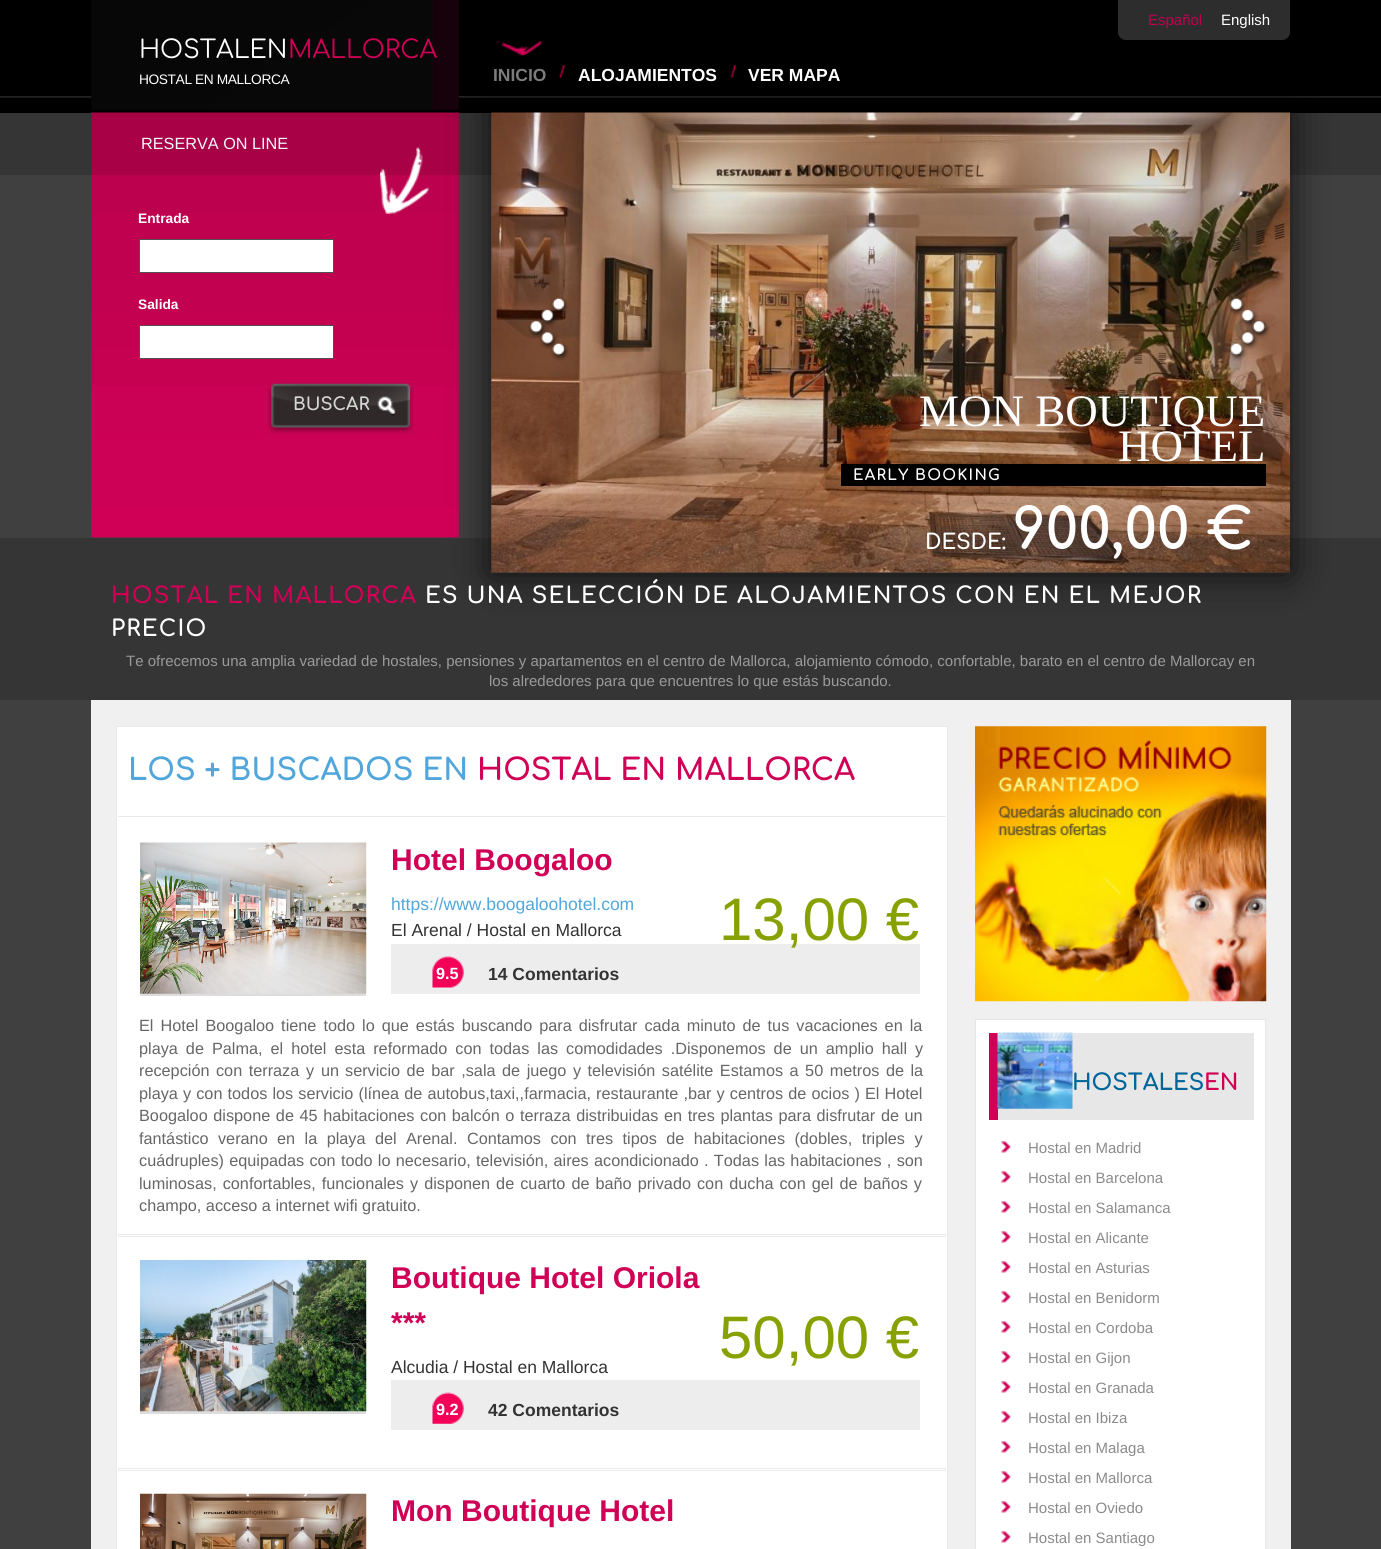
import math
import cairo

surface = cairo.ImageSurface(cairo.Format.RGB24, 1381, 1549)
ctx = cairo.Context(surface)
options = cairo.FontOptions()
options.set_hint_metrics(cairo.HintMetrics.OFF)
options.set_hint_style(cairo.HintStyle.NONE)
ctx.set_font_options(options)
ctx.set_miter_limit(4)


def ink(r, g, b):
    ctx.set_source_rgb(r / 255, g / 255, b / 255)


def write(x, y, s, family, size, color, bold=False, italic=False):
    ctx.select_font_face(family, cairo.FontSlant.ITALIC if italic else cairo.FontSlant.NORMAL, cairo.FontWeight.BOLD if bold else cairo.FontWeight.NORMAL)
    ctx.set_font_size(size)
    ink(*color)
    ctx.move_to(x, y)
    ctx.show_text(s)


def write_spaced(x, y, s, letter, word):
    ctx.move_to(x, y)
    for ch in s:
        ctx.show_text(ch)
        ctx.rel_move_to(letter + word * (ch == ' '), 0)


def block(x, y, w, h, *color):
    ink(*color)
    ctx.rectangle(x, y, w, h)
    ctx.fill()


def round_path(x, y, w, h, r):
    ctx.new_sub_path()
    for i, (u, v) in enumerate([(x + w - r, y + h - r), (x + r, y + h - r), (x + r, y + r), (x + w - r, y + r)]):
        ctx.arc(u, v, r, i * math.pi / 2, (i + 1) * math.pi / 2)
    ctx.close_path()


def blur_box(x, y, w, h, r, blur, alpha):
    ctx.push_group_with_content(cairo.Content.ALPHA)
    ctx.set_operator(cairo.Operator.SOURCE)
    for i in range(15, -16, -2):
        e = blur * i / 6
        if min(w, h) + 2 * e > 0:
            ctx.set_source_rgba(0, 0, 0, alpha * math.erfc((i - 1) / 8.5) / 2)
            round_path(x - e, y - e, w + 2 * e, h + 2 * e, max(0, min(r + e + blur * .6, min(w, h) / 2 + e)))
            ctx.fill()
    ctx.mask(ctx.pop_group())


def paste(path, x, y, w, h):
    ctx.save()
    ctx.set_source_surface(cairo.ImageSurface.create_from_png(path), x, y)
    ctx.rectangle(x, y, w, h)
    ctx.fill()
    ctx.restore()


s1 = dict(family="Comfortaa", size=25, color=(255, 255, 255))
s2 = dict(family="Comfortaa", size=25, color=(208, 0, 86))
s3 = dict(family="Liberation Sans", size=15, color=(193, 0, 80))
s4 = dict(family="Liberation Sans", size=15, color=(255, 255, 255))
s5 = dict(family="Liberation Sans", size=17.5, color=(124, 124, 124), bold=True)
s6 = dict(family="Liberation Sans", size=17.5, color=(255, 255, 255), bold=True)
s7 = dict(family="Liberation Sans", size=16.25, color=(239, 248, 255))
s8 = dict(family="Liberation Sans", size=13.75, color=(255, 255, 255), bold=True)
s9 = dict(family="Comfortaa", size=17.5, color=(215, 214, 214), bold=True)
s10 = dict(family="Liberation Serif", size=45, color=(255, 255, 255))
s11 = dict(family="Comfortaa", size=21, color=(255, 255, 255), bold=True)
s12 = dict(family="Comfortaa", size=56.25, color=(255, 255, 255), bold=True)
s13 = dict(family="Liberation Sans", size=15, color=(154, 154, 154))
s14 = dict(family="Comfortaa", size=30, color=(81, 167, 219), bold=True)
s15 = dict(family="Comfortaa", size=30, color=(208, 0, 86), bold=True)
s16 = dict(family="Liberation Sans", size=30, color=(208, 0, 86), bold=True)
s17 = dict(family="Liberation Sans", size=17.5, color=(81, 167, 219))
s18 = dict(family="Liberation Sans", size=60, color=(134, 161, 0))
s19 = dict(family="Liberation Sans", size=17.5, color=(51, 51, 51))
s20 = dict(family="Liberation Sans", size=16.25, color=(255, 255, 255), bold=True)
s21 = dict(family="Liberation Sans", size=17.5, color=(51, 51, 51), bold=True)
s22 = dict(family="Liberation Sans", size=16.25, color=(102, 102, 102))
s23 = dict(family="Comfortaa", size=22.5, color=(0, 102, 153), bold=True)
s24 = dict(family="Comfortaa", size=22.5, color=(208, 0, 86), bold=True)
s25 = dict(family="Liberation Sans", size=15, color=(139, 139, 139))

ink(64, 64, 64)
ctx.paint()
block(0, 0, 1381, 113, 0, 0, 0)
paste("pic1.png", 0, 96, 1381, 2)
paste("pic2.png", 91, 0, 368, 110)
write(139, 58, "HOSTALEN", **s1)
write(288, 58, "MALLORCA", **s2)
ctx.select_font_face("Liberation Sans")
ctx.set_font_size(13.75)
ink(255, 255, 255)
write_spaced(139, 84, "HOSTAL EN MALLORCA", -0.4, 0)
ink(45, 45, 45)
ctx.new_path()
ctx.move_to(1118, 0)
ctx.line_to(1290, 0)
ctx.line_to(1290, 32)
ctx.curve_to(1290, 36.5, 1286.5, 40, 1282, 40)
ctx.line_to(1126, 40)
ctx.curve_to(1121.5, 40, 1118, 36.5, 1118, 32)
ctx.close_path()
ctx.fill()
write(1148, 25, "Español", **s3)
write(1221, 25, "English", **s4)
block(0, 113, 1381, 62, 53, 53, 53)
paste("pic6.png", 91, 112, 368, 426)
block(0, 538, 1381, 162, 53, 53, 53)
ctx.save()
ctx.set_fill_rule(cairo.FillRule.EVEN_ODD)
ctx.new_path()
ctx.move_to(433, 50)
ctx.line_to(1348, 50)
ctx.line_to(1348, 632)
ctx.line_to(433, 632)
ctx.close_path()
ctx.move_to(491, 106)
ctx.line_to(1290, 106)
ctx.line_to(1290, 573)
ctx.line_to(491, 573)
ctx.close_path()
ctx.clip()
ink(0, 0, 0)
blur_box(491, 108, 799, 466, 0, 19, 0.75)
ctx.restore()
paste("pic3.png", 496, 41, 47, 16)
write(493, 81, "INICIO", **s5)
paste("pic4.png", 558, 65, 7, 13)
write(578, 81, "ALOJAMIENTOS", **s6)
paste("pic5.png", 730, 65, 7, 13)
write(748, 81, "VER MAPA", **s6)
write(141, 149, "RESERVA ON LINE", **s7)
paste("pic7.png", 380, 147, 49, 67)
write(138, 223, "Entrada", **s8)
ctx.rectangle(139.5, 239.5, 194, 33)
ctx.fill_preserve()
ink(81, 81, 81)
ctx.set_line_width(1)
ctx.stroke()
write(138, 309, "Salida", **s8)
ctx.rectangle(139.5, 325.5, 194, 33)
ctx.fill_preserve()
ink(81, 81, 81)
ctx.stroke()
paste("pic8.png", 267, 382, 147, 52)
write(293, 410, "BUSCAR", **s9)
paste("pic11.png", 491, 112, 799, 461)
paste("pic9.png", 528, 297, 41, 64)
paste("pic10.png", 1228, 298, 42, 63)
write(919, 426, "MON BOUTIQUE", **s10)
write(1118, 461, "HOTEL", **s10)
block(841, 464, 425, 22, 0, 0, 0)
ctx.select_font_face("Comfortaa", cairo.FontSlant.NORMAL, cairo.FontWeight.BOLD)
ctx.set_font_size(15)
ink(255, 255, 255)
write_spaced(853, 480, "EARLY BOOKING", 1.25, 0)
write(925, 549, "DESDE:", **s11)
write(1013, 549, "900,00 €", **s12)
ctx.set_font_size(22.5)
ink(208, 0, 86)
write_spaced(111, 603, "HOSTAL EN MALLORCA", 1.25, 0)
ink(255, 255, 255)
write_spaced(425, 603, "ES UNA SELECCIÓN DE ALOJAMIENTOS CON EN EL MEJOR", 1.25, 0)
write_spaced(111, 636, "PRECIO", 1.25, 0)
write(126, 666, "Te ofrecemos una amplia variedad de hostales, pensiones y apartamentos en el centro de Mallorca, alojamiento cómodo, confortable, barato en el centro de Mallorcay en", **s13)
write(489, 686, "los alrededores para que encuentres lo que estás buscando.", **s13)
block(91, 700, 1200, 849, 240, 240, 240)
ink(255, 255, 255)
ctx.rectangle(116.5, 726.5, 831, 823)
ctx.fill_preserve()
ink(234, 234, 234)
ctx.stroke()
write(128, 780, "LOS + BUSCADOS EN", **s14)
write(477, 780, "HOSTAL EN MALLORCA", **s15)
block(118, 816, 828, 1, 234, 234, 234)
block(118, 1234, 828, 1, 234, 234, 234)
block(140, 993, 226, 3, 221, 221, 221)
paste("pic12.png", 140, 842, 227, 152)
write(391, 870, "Hotel Boogaloo", **s16)
write(391, 910, "https://www.boogaloohotel.com", **s17)
block(391, 944, 529, 50, 237, 237, 237)
write(719, 940, "13,00 €", **s18)
write(391, 936, "El Arenal / Hostal en Mallorca", **s19)
paste("pic13.png", 432, 956, 32, 32)
write(436, 979, "9.5", **s20)
write(488, 980, "14 Comentarios", **s21)
ctx.select_font_face("Liberation Sans")
ctx.set_font_size(16.25)
ink(102, 102, 102)
write_spaced(139, 1031, "El Hotel Boogaloo tiene todo lo que estás buscando para disfrutar cada minuto de tus vacaciones en la", 0, 2.5)
write_spaced(139, 1054, "playa de Palma, el hotel esta reformado con todas las comodidades .Disponemos de un amplio hall y", 0, 3.5)
write_spaced(139, 1076, "recepción con terraza", 0, 2)
write(306, 1076, "y", **s22)
write(321, 1076, "un", **s22)
write_spaced(345, 1076, "servicio de bar ,sala de juego y televisión satélite Estamos a 50 metros de la", 0, 2)
write_spaced(139, 1099, "playa y con todos los servicio (línea de autobus,taxi,,farmacia, restaurante ,bar y centros de ocios ) El Hotel", 0, 0.6)
write_spaced(139, 1121, "Boogaloo dispone de 45 habitaciones", 0, 1.1)
write_spaced(420, 1121, "con balcón o terraza distribuidas en tres plantas para disfrutar de un", 0, 1.1)
write_spaced(139, 1144, "fantástico verano en la playa del Arenal. Contamos con tres tipos de habitaciones (dobles, triples y", 0, 4.9)
write_spaced(139, 1166, "cuádruples) equipadas con todo lo necesario, televisión, aires acondicionado . Todas las habitaciones , son", 0, 0.75)
write_spaced(139, 1189, "luminosas, confortables, funcionales y disponen de cuarto de baño privado con ducha con gel de baños y", 0, 1.5)
write(139, 1211, "champo, acceso a internet wifi gratuito.", **s22)
block(118, 1236, 828, 1, 234, 234, 234)
block(118, 1468, 828, 1, 234, 234, 234)
block(140, 1411, 226, 3, 221, 221, 221)
paste("pic14.png", 140, 1260, 227, 152)
write(391, 1288, "Boutique Hotel Oriola", **s16)
write(391, 1333, "***", **s16)
write(391, 1373, "Alcudia / Hostal en Mallorca", **s19)
write(719, 1358, "50,00 €", **s18)
block(391, 1380, 529, 50, 237, 237, 237)
paste("pic15.png", 432, 1392, 32, 32)
write(436, 1415, "9.2", **s20)
write(488, 1416, "42 Comentarios", **s21)
block(118, 1470, 828, 1, 234, 234, 234)
paste("pic16.png", 140, 1493, 227, 56)
write(391, 1521, "Mon Boutique Hotel", **s16)
paste("pic17.png", 975, 726, 292, 276)
ink(255, 255, 255)
ctx.rectangle(975.5, 1019.5, 290, 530)
ctx.fill_preserve()
ink(231, 231, 231)
ctx.stroke()
block(998, 1033, 256, 87, 231, 231, 231)
block(989, 1033, 9, 87, 208, 0, 86)
paste("pic18.png", 997, 1032, 76, 77)
write(1072, 1090, "HOSTALES", **s23)
write(1204, 1090, "EN", **s24)
paste("pic19.png", 1001, 1141, 10, 12)
write(1028, 1153, "Hostal en Madrid", **s25)
paste("pic20.png", 1001, 1171, 10, 12)
write(1028, 1183, "Hostal en Barcelona", **s25)
paste("pic19.png", 1001, 1201, 10, 12)
write(1028, 1213, "Hostal en Salamanca", **s25)
paste("pic19.png", 1001, 1231, 10, 12)
write(1028, 1243, "Hostal en Alicante", **s25)
paste("pic19.png", 1001, 1261, 10, 12)
write(1028, 1273, "Hostal en Asturias", **s25)
paste("pic19.png", 1001, 1291, 10, 12)
write(1028, 1303, "Hostal en Benidorm", **s25)
paste("pic19.png", 1001, 1321, 10, 12)
write(1028, 1333, "Hostal en Cordoba", **s25)
paste("pic19.png", 1001, 1351, 10, 12)
write(1028, 1363, "Hostal en Gijon", **s25)
paste("pic19.png", 1001, 1381, 10, 12)
write(1028, 1393, "Hostal en Granada", **s25)
paste("pic19.png", 1001, 1411, 10, 12)
write(1028, 1423, "Hostal en Ibiza", **s25)
paste("pic19.png", 1001, 1441, 10, 12)
write(1028, 1453, "Hostal en Malaga", **s25)
paste("pic19.png", 1001, 1471, 10, 12)
write(1028, 1483, "Hostal en Mallorca", **s25)
paste("pic19.png", 1001, 1501, 10, 12)
write(1028, 1513, "Hostal en Oviedo", **s25)
paste("pic19.png", 1001, 1531, 10, 12)
write(1028, 1543, "Hostal en Santiago", **s25)
surface.write_to_png("screenshot.png")
